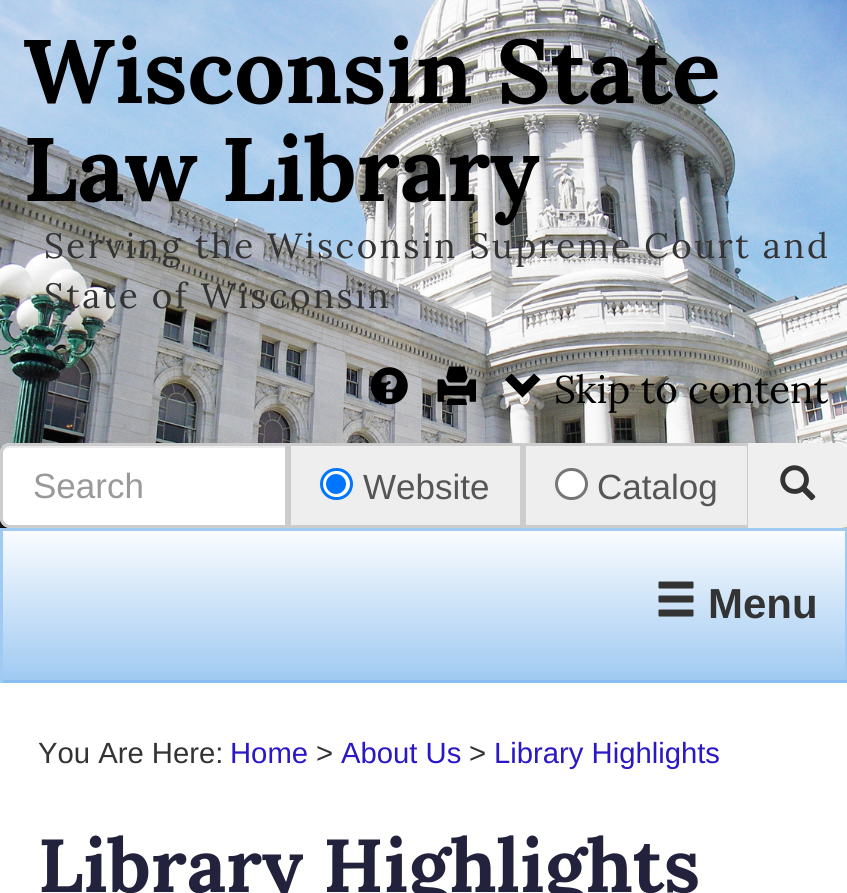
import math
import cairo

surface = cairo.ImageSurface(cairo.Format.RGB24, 847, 893)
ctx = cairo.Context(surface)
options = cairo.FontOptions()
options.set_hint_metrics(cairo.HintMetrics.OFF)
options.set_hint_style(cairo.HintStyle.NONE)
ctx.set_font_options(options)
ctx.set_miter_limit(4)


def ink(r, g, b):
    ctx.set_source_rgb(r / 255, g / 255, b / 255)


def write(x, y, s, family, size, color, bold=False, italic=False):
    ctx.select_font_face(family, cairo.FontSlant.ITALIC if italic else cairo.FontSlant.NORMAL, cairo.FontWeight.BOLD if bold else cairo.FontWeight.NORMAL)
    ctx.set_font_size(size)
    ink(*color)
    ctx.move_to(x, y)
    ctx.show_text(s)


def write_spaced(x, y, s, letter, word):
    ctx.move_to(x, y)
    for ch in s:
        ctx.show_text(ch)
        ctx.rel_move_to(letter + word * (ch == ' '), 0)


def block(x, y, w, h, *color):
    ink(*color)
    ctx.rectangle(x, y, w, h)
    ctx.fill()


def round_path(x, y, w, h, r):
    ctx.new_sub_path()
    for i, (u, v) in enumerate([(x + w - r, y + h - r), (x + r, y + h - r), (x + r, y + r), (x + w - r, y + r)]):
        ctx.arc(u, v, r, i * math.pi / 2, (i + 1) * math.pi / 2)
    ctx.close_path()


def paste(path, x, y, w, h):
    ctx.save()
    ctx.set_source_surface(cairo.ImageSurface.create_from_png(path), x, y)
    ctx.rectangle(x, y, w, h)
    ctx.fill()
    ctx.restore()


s1 = dict(family="Lora", size=90, color=(0, 0, 0), bold=True)
s2 = dict(family="Lora", size=38.5, color=(0, 0, 0))
s3 = dict(family="Liberation Sans", size=35, color=(153, 153, 153))
s4 = dict(family="Liberation Sans", size=35, color=(85, 85, 85))
s5 = dict(family="Liberation Sans", size=42, color=(51, 51, 51), bold=True)
s6 = dict(family="Liberation Sans", size=29.25, color=(51, 51, 51))
s7 = dict(family="Liberation Sans", size=29.25, color=(42, 23, 197))
s8 = dict(family="Lora", size=75, color=(34, 34, 60), bold=True)

ink(255, 255, 255)
ctx.paint()
paste("pic1.png", 0, 0, 847, 528)
write(23, 103, "Wisconsin State", **s1)
write(23, 201, "Law Library", **s1)
ctx.select_font_face("Lora")
ctx.set_font_size(35)
ink(51, 51, 51)
write_spaced(44, 258, "Serving the Wisconsin Supreme Court and", 2.45, 0)
write_spaced(44, 308, "State of Wisconsin", 2.45, 0)
paste("pic2.png", 370, 367, 38, 38)
paste("pic3.png", 437, 366, 39, 39)
ink(0, 0, 0)
ctx.new_path()
ctx.move_to(540.5, 379.5)
ctx.line_to(522.5, 397.5)
ctx.line_to(505, 379.5)
ctx.line_to(511.5, 373.5)
ctx.line_to(522.5, 384.5)
ctx.line_to(534, 373.5)
ctx.close_path()
ctx.fill()
write(554, 403, "Skip to content", **s2)
ink(255, 255, 255)
ctx.new_path()
ctx.move_to(10, 443)
ctx.line_to(288, 443)
ctx.line_to(288, 528)
ctx.line_to(10, 528)
ctx.curve_to(4.5, 528, 0, 523.5, 0, 518)
ctx.line_to(0, 453)
ctx.curve_to(0, 447.5, 4.5, 443, 10, 443)
ctx.close_path()
ctx.fill()
ink(236, 236, 236)
ctx.new_path()
ctx.move_to(10, 448)
ctx.line_to(285, 448)
ctx.line_to(285, 445)
ctx.line_to(11, 445)
ctx.curve_to(7, 445, 4, 448, 3, 451)
ctx.curve_to(5, 449, 7, 448, 10, 448)
ctx.close_path()
ctx.fill()
ctx.new_path()
ctx.move_to(10, 444.5)
ctx.line_to(286.5, 444.5)
ctx.line_to(286.5, 526.5)
ctx.line_to(10, 526.5)
ctx.curve_to(5.5, 526.5, 1.5, 522.5, 1.5, 518)
ctx.line_to(1.5, 453)
ctx.curve_to(1.5, 448.5, 5.5, 444.5, 10, 444.5)
ctx.close_path()
ink(204, 204, 204)
ctx.set_line_width(3)
ctx.stroke()
write(33, 498, "Search", **s3)
ink(238, 238, 238)
ctx.rectangle(289.5, 444.5, 232, 82)
ctx.fill_preserve()
ink(204, 204, 204)
ctx.stroke()
ink(255, 255, 255)
round_path(321.5, 469.5, 30, 29, 14.5)
ctx.fill_preserve()
ink(0, 117, 255)
ctx.stroke()
ctx.arc(336, 484, 10, 0, 2 * math.pi)
ctx.fill()
write(363, 499, "Website", **s4)
ink(238, 238, 238)
ctx.rectangle(524.5, 444.5, 224, 82)
ctx.fill_preserve()
ink(204, 204, 204)
ctx.stroke()
ink(255, 255, 255)
round_path(556.5, 469.5, 30, 29, 14.5)
ctx.fill_preserve()
ink(118, 118, 118)
ctx.stroke()
write(597, 499, "Catalog", **s4)
ink(239, 239, 239)
ctx.new_path()
ctx.move_to(748, 443)
ctx.line_to(838, 443)
ctx.curve_to(843.5, 443, 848, 447.5, 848, 453)
ctx.line_to(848, 518)
ctx.curve_to(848, 523.5, 843.5, 528, 838, 528)
ctx.line_to(748, 528)
ctx.close_path()
ctx.fill()
paste("pic4.png", 780, 465, 36, 36)
gradient = cairo.LinearGradient(424, 530, 424, 680)
gradient.add_color_stop_rgba(0, 0.98, 0.988, 0.996, 1)
gradient.add_color_stop_rgba(1, 0.627, 0.792, 0.949, 1)
ctx.set_source(gradient)
ctx.rectangle(3, 531, 842, 149)
ctx.fill()
block(0, 528, 847, 3, 160, 202, 242)
block(845, 528, 2, 155, 160, 202, 242)
block(0, 680, 847, 3, 138, 190, 240)
block(0, 528, 3, 155, 160, 202, 242)
paste("pic5.png", 658, 581, 36, 36)
write(708, 618, "Menu", **s5)
write(38, 763, "You Are Here:", **s6)
write(230, 763, "Home", **s7)
write(316, 763, ">", **s6)
write(341, 763, "About Us", **s7)
write(469, 763, ">", **s6)
write(494, 763, "Library Highlights", **s7)
write(38, 892, "Library Highlights", **s8)
surface.write_to_png("screenshot.png")
